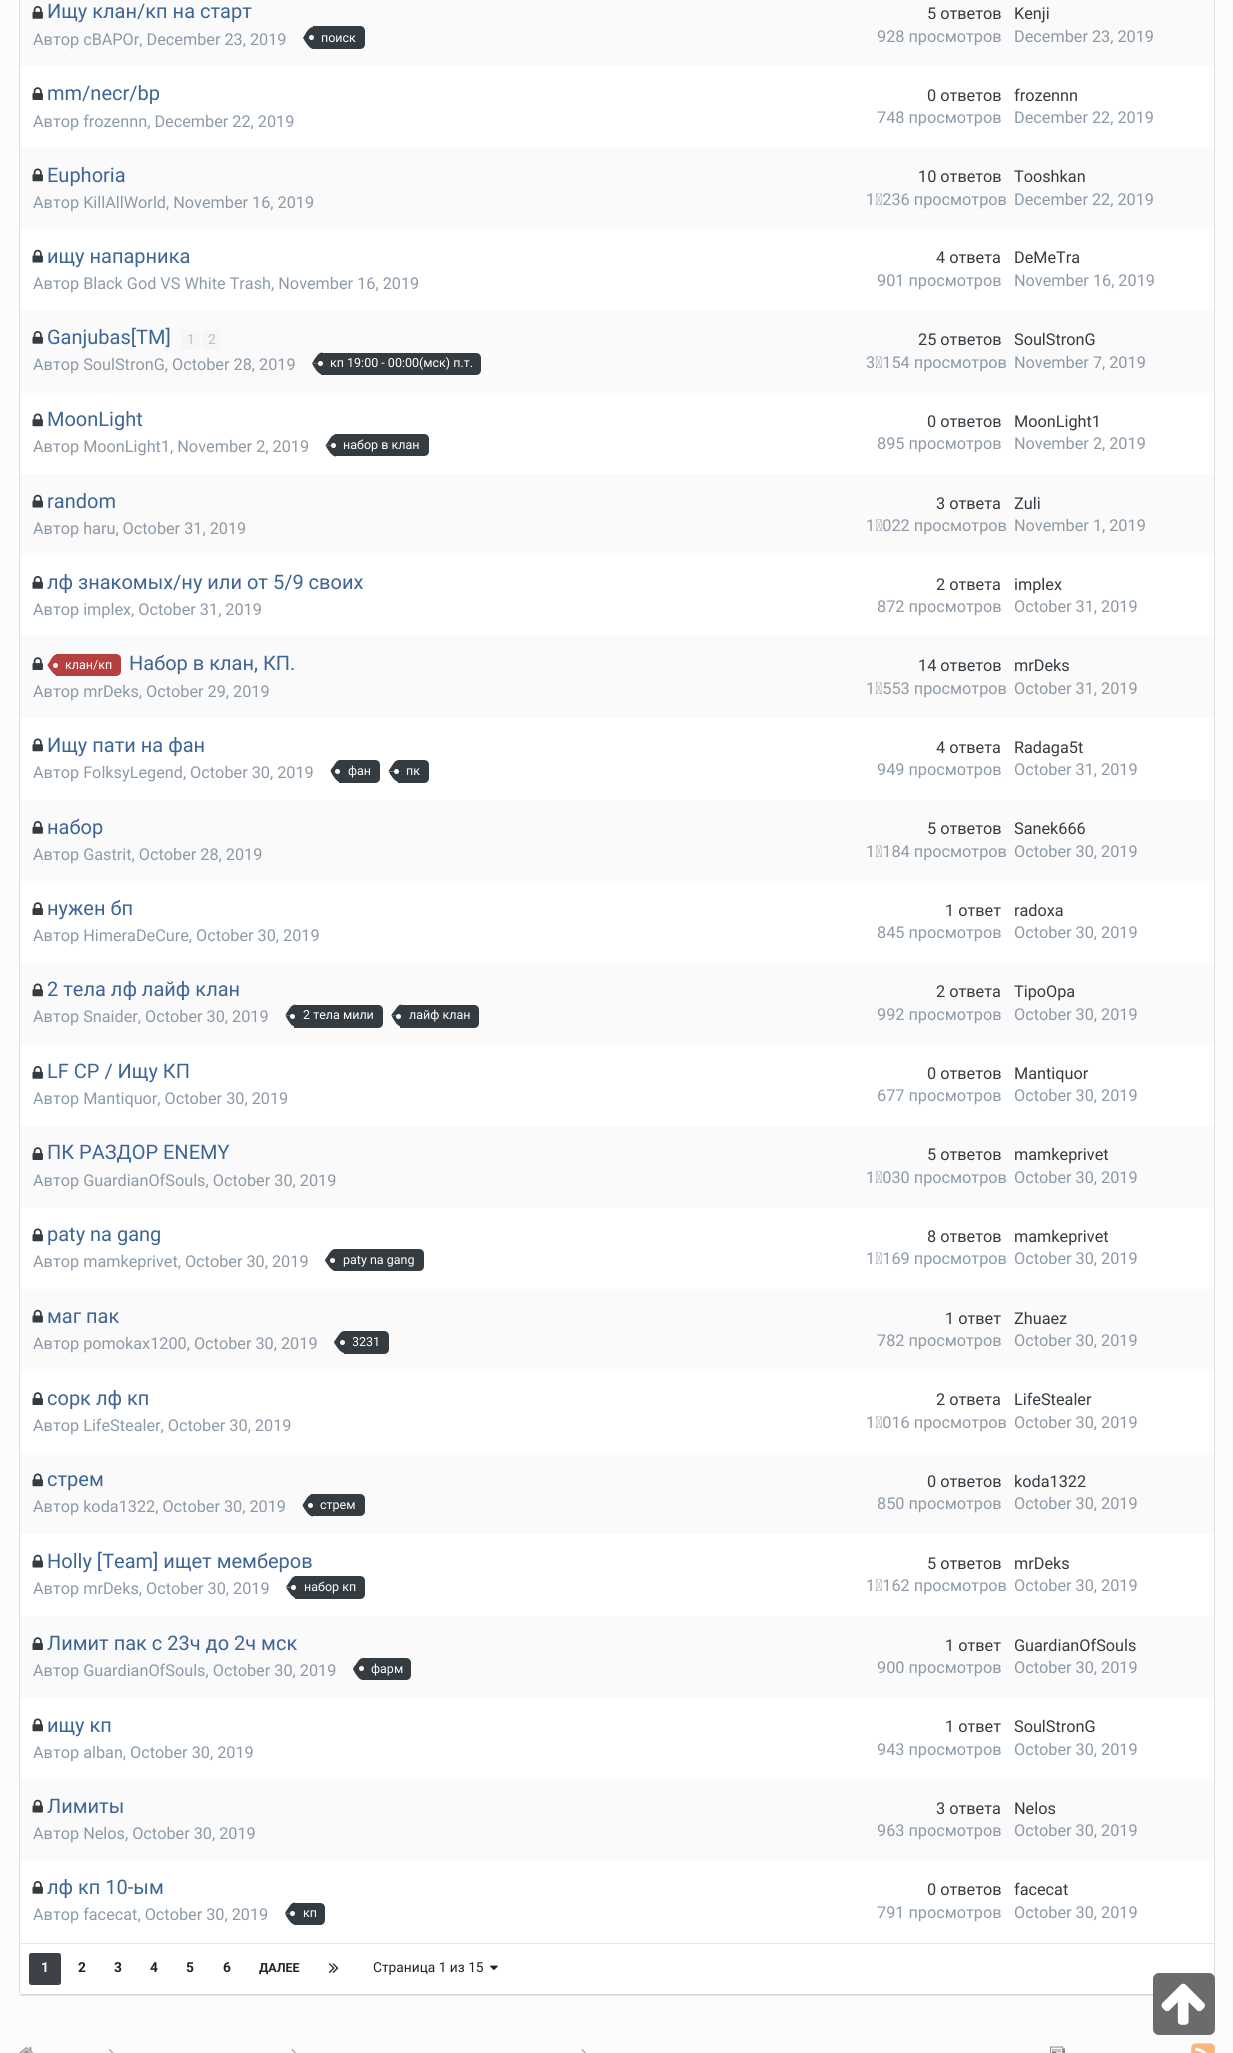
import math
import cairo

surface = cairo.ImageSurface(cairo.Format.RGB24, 1233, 2053)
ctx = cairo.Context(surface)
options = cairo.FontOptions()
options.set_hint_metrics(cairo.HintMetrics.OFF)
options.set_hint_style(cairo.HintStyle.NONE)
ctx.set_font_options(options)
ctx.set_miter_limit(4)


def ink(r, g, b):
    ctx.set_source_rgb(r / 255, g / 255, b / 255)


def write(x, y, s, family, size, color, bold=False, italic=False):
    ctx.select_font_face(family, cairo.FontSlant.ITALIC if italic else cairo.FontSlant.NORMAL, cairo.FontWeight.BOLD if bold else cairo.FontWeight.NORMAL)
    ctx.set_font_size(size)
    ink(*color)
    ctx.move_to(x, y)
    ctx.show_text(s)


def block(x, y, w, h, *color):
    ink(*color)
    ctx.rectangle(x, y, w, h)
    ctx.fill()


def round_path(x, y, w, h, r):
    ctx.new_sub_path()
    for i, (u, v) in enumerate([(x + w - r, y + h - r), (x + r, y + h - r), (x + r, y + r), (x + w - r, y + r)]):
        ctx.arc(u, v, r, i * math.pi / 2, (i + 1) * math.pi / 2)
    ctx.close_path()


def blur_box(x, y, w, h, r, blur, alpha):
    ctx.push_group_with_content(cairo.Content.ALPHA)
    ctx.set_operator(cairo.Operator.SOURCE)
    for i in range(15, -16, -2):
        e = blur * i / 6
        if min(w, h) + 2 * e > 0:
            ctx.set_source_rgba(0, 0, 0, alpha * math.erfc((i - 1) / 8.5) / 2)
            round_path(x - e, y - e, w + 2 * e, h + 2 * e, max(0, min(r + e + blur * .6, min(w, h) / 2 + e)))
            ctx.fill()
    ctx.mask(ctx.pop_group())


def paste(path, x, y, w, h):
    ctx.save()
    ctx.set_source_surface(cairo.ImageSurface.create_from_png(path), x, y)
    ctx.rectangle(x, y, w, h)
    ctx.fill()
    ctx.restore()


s1 = dict(family="Roboto", size=20, color=(61, 101, 148))
s2 = dict(family="Roboto", size=16.25, color=(141, 154, 166))
s3 = dict(family="Roboto", size=12.5, color=(255, 255, 255))
s4 = dict(family="Roboto", size=16.25, color=(53, 60, 65))
s5 = dict(family="Roboto", size=13.75, color=(190, 190, 190))
s6 = dict(family="Roboto", size=13.75, color=(255, 255, 255), bold=True)
s7 = dict(family="Roboto", size=13.75, color=(34, 34, 34), bold=True)
s8 = dict(family="Roboto", size=12.5, color=(34, 34, 34), bold=True)
s9 = dict(family="Roboto", size=13.75, color=(34, 34, 34))

ink(252, 252, 252)
ctx.paint()
ink(227, 227, 227)
ctx.new_path()
ctx.move_to(19, 1993)
ctx.curve_to(19, 1995, 21, 1996, 23, 1996)
ctx.line_to(1211, 1996)
ctx.curve_to(1213, 1996, 1215, 1994, 1215, 1992)
ctx.line_to(1215, 1991)
ctx.curve_to(1215, 1993, 1213, 1995, 1211, 1995)
ctx.line_to(22, 1995)
ctx.curve_to(21, 1995, 20, 1994, 19, 1993)
ctx.close_path()
ctx.fill()
ink(255, 255, 255)
round_path(19.5, -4.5, 1195, 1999, 3.5)
ctx.fill_preserve()
ink(224, 224, 224)
ctx.set_line_width(1)
ctx.stroke()
block(20, 0, 1194, 66, 250, 250, 250)
paste("pic1.png", 32, 6, 11, 13)
write(47, 18, "Ищу клан/кп на старт", **s1)
write(33, 45, "Автор cBAPOr, December 23, 2019", **s2)
ink(53, 60, 65)
ctx.new_path()
ctx.move_to(313, 26)
ctx.line_to(360, 26)
ctx.curve_to(363, 26, 365, 28, 365, 31)
ctx.line_to(365, 44)
ctx.curve_to(365, 47, 363, 49, 360, 49)
ctx.line_to(313, 49)
ctx.close_path()
ctx.fill()
ctx.new_path()
ctx.move_to(313.5, 49)
ctx.curve_to(309, 49, 305, 41, 303, 38)
ctx.line_to(313.5, 38)
ctx.close_path()
ctx.move_to(306.5, 32)
ctx.curve_to(308.5, 29.5, 310, 27, 313.5, 27)
ctx.line_to(313.5, 37.5)
ctx.line_to(313, 37.5)
ctx.line_to(313.5, 38)
ctx.line_to(303, 38)
ctx.close_path()
ctx.fill()
ink(255, 255, 255)
ctx.arc(311.5, 37.5, 2.5, 0, 2 * math.pi)
ctx.fill()
write(321, 42, "поиск", **s3)
write(927, 19, "5 ответов", **s4)
write(877, 42, "928 просмотров", **s2)
write(1014, 19, "Kenji", **s4)
write(1014, 42, "December 23, 2019", **s2)
paste("pic2.png", 32, 87, 11, 13)
write(47, 100, "mm/necr/bp", **s1)
write(33, 127, "Автор frozennn, December 22, 2019", **s2)
write(927, 101, "0 ответов", **s4)
write(877, 123, "748 просмотров", **s2)
write(1014, 101, "frozennn", **s4)
write(1014, 123, "December 22, 2019", **s2)
block(20, 148, 1194, 81, 250, 250, 250)
paste("pic3.png", 32, 168, 11, 14)
write(47, 182, "Euphoria", **s1)
write(33, 208, "Автор KillAllWorld, November 16, 2019", **s2)
write(918, 182, "10 ответов", **s4)
write(866, 205, "1 236 просмотров", **s2)
write(1014, 182, "Tooshkan", **s4)
write(1014, 205, "December 22, 2019", **s2)
paste("pic4.png", 32, 249, 11, 14)
write(47, 263, "ищу напарника", **s1)
write(33, 289, "Автор Black God VS White Trash, November 16, 2019", **s2)
write(936, 263, "4 ответа", **s4)
write(877, 286, "901 просмотров", **s2)
write(1014, 263, "DeMeTra", **s4)
write(1014, 286, "November 16, 2019", **s2)
block(20, 310, 1194, 83, 250, 250, 250)
paste("pic1.png", 32, 331, 11, 13)
write(47, 344, "Ganjubas[TM]", **s1)
ink(246, 246, 246)
round_path(181, 330, 19, 20, 2.5)
ctx.fill()
write(187, 344, "1", **s5)
ink(246, 246, 246)
round_path(203, 330, 17, 20, 2.5)
ctx.fill()
write(208, 344, "2", **s5)
write(33, 370, "Автор SoulStronG, October 28, 2019", **s2)
ink(53, 60, 65)
ctx.new_path()
ctx.move_to(321, 353)
ctx.line_to(476, 353)
ctx.curve_to(479, 353, 481, 355, 481, 358)
ctx.line_to(481, 370)
ctx.curve_to(481, 373, 479, 375, 476, 375)
ctx.line_to(321, 375)
ctx.close_path()
ctx.fill()
ctx.new_path()
ctx.move_to(322.5, 374.5)
ctx.curve_to(318, 374.5, 314, 367, 312, 363.5)
ctx.line_to(322.5, 363.5)
ctx.line_to(322, 364)
ctx.line_to(322.5, 364)
ctx.close_path()
ctx.fill()
ctx.new_path()
ctx.move_to(315, 358.5)
ctx.curve_to(317, 356, 318.5, 352.5, 322.5, 352.5)
ctx.line_to(322.5, 363)
ctx.line_to(322, 363)
ctx.line_to(322.5, 363.5)
ctx.line_to(312, 363.5)
ctx.close_path()
ctx.fill()
write(330, 367, "кп 19:00 - 00:00(мск) п.т.", **s3)
ctx.new_path()
ctx.arc(320.5, 363.5, 2.5, 0, 2 * math.pi)
ctx.fill()
write(918, 345, "25 ответов", **s4)
write(866, 368, "3 154 просмотров", **s2)
write(1014, 345, "SoulStronG", **s4)
write(1014, 368, "November 7, 2019", **s2)
paste("pic5.png", 32, 413, 11, 14)
write(47, 426, "MoonLight", **s1)
write(33, 452, "Автор MoonLight1, November 2, 2019", **s2)
ink(53, 60, 65)
ctx.new_path()
ctx.move_to(335, 434)
ctx.line_to(424, 434)
ctx.curve_to(427, 434, 429, 436, 429, 439)
ctx.line_to(429, 451)
ctx.curve_to(429, 454, 427, 456, 424, 456)
ctx.line_to(335, 456)
ctx.close_path()
ctx.fill()
ctx.new_path()
ctx.move_to(336, 456.5)
ctx.curve_to(331.5, 456.5, 327.5, 449, 325.5, 445.5)
ctx.line_to(336, 445.5)
ctx.line_to(335.5, 446)
ctx.line_to(336, 446)
ctx.close_path()
ctx.fill()
ctx.new_path()
ctx.move_to(328.5, 441)
ctx.curve_to(330, 438.5, 332, 434.5, 336, 434.5)
ctx.line_to(336, 445)
ctx.line_to(335.5, 445)
ctx.line_to(336, 445.5)
ctx.line_to(325.5, 445.5)
ctx.close_path()
ctx.fill()
write(343, 449, "набор в клан", **s3)
ctx.new_path()
ctx.arc(333.5, 445.5, 2.5, 0, 2 * math.pi)
ctx.fill()
write(927, 427, "0 ответов", **s4)
write(877, 449, "895 просмотров", **s2)
write(1014, 427, "MoonLight1", **s4)
write(1014, 449, "November 2, 2019", **s2)
block(20, 474, 1194, 81, 250, 250, 250)
paste("pic6.png", 32, 494, 11, 14)
write(47, 508, "random", **s1)
write(33, 534, "Автор haru, October 31, 2019", **s2)
write(936, 509, "3 ответа", **s4)
write(866, 531, "1 022 просмотров", **s2)
write(1014, 509, "Zuli", **s4)
write(1014, 531, "November 1, 2019", **s2)
paste("pic7.png", 32, 576, 11, 13)
write(47, 589, "лф знакомых/ну или от 5/9 своих", **s1)
write(33, 615, "Автор implex, October 31, 2019", **s2)
write(936, 590, "2 ответа", **s4)
write(877, 612, "872 просмотров", **s2)
write(1014, 590, "implex", **s4)
write(1014, 612, "October 31, 2019", **s2)
block(20, 636, 1194, 82, 250, 250, 250)
paste("pic8.png", 32, 657, 11, 13)
ink(182, 63, 63)
ctx.new_path()
ctx.move_to(56, 654)
ctx.line_to(116, 654)
ctx.curve_to(119, 654, 121, 656, 121, 659)
ctx.line_to(121, 671)
ctx.curve_to(121, 674, 119, 676, 116, 676)
ctx.line_to(56, 676)
ctx.close_path()
ctx.fill()
ctx.new_path()
ctx.move_to(47.5, 665.5)
ctx.line_to(47.5, 665)
ctx.line_to(58, 665)
ctx.line_to(57.5, 665.5)
ctx.line_to(58, 665.5)
ctx.line_to(58, 676)
ctx.curve_to(54, 676, 49.5, 668.5, 47.5, 665.5)
ctx.close_path()
ctx.move_to(52.5, 657)
ctx.curve_to(54, 655.5, 55.5, 654, 58, 654)
ctx.line_to(58, 665)
ctx.line_to(47.5, 665)
ctx.close_path()
ctx.fill()
write(65, 669, "клан/кп", **s3)
ctx.new_path()
ctx.arc(55.5, 665.5, 2.5, 0, 2 * math.pi)
ctx.fill()
write(129, 670, "Набор в клан, КП.", **s1)
write(33, 697, "Автор mrDeks, October 29, 2019", **s2)
write(918, 671, "14 ответов", **s4)
write(866, 694, "1 553 просмотров", **s2)
write(1014, 671, "mrDeks", **s4)
write(1014, 694, "October 31, 2019", **s2)
paste("pic5.png", 32, 738, 11, 14)
write(47, 752, "Ищу пати на фан", **s1)
write(33, 778, "Автор FolksyLegend, October 30, 2019", **s2)
ink(53, 60, 65)
ctx.new_path()
ctx.move_to(339, 760)
ctx.line_to(375, 760)
ctx.curve_to(378, 760, 380, 762, 380, 765)
ctx.line_to(380, 778)
ctx.curve_to(380, 781, 378, 783, 375, 783)
ctx.line_to(339, 783)
ctx.close_path()
ctx.fill()
ctx.new_path()
ctx.move_to(340.5, 782)
ctx.curve_to(336.5, 782, 334, 777, 332, 774)
ctx.line_to(330.5, 771)
ctx.line_to(340.5, 771)
ctx.close_path()
ctx.move_to(332.5, 767.5)
ctx.curve_to(335, 765, 336, 760, 340.5, 760)
ctx.line_to(340.5, 771)
ctx.line_to(330.5, 771)
ctx.curve_to(330.5, 770, 331.5, 768.5, 332.5, 767.5)
ctx.close_path()
ctx.fill()
write(348, 775, "фан", **s3)
ctx.new_path()
ctx.arc(337.5, 771.5, 2.5, 0, 2 * math.pi)
ctx.fill()
ink(53, 60, 65)
ctx.new_path()
ctx.move_to(398, 760)
ctx.line_to(424, 760)
ctx.curve_to(427, 760, 429, 762, 429, 765)
ctx.line_to(429, 778)
ctx.curve_to(429, 781, 427, 783, 424, 783)
ctx.line_to(398, 783)
ctx.close_path()
ctx.fill()
ctx.new_path()
ctx.move_to(388.5, 771.5)
ctx.line_to(399, 771)
ctx.line_to(398.5, 771.5)
ctx.line_to(399, 771.5)
ctx.line_to(399, 782)
ctx.curve_to(394.5, 782, 390.5, 774.5, 388.5, 771.5)
ctx.close_path()
ctx.move_to(394.5, 762)
ctx.curve_to(395.5, 761, 397.5, 760, 399, 760)
ctx.line_to(399, 771)
ctx.line_to(388.5, 771)
ctx.close_path()
ctx.fill()
write(406, 775, "пк", **s3)
ctx.new_path()
ctx.arc(396.5, 771.5, 2.5, 0, 2 * math.pi)
ctx.fill()
write(936, 753, "4 ответа", **s4)
write(877, 775, "949 просмотров", **s2)
write(1014, 753, "Radaga5t", **s4)
write(1014, 775, "October 31, 2019", **s2)
block(20, 800, 1194, 81, 250, 250, 250)
paste("pic1.png", 32, 821, 11, 13)
write(47, 834, "набор", **s1)
write(33, 860, "Автор Gastrit, October 28, 2019", **s2)
write(927, 834, "5 ответов", **s4)
write(866, 857, "1 184 просмотров", **s2)
write(1014, 834, "Sanek666", **s4)
write(1014, 857, "October 30, 2019", **s2)
paste("pic2.png", 32, 902, 11, 13)
write(47, 915, "нужен бп", **s1)
write(33, 941, "Автор HimeraDeCure, October 30, 2019", **s2)
write(945, 916, "1 ответ", **s4)
write(877, 938, "845 просмотров", **s2)
write(1014, 916, "radoxa", **s4)
write(1014, 938, "October 30, 2019", **s2)
block(20, 963, 1194, 82, 250, 250, 250)
paste("pic3.png", 32, 983, 11, 14)
write(47, 996, "2 тела лф лайф клан", **s1)
write(33, 1022, "Автор Snaider, October 30, 2019", **s2)
ink(53, 60, 65)
ctx.new_path()
ctx.move_to(294, 1005)
ctx.line_to(378, 1005)
ctx.curve_to(381, 1005, 383, 1007, 383, 1010)
ctx.line_to(383, 1023)
ctx.curve_to(383, 1026, 381, 1028, 378, 1028)
ctx.line_to(294, 1028)
ctx.close_path()
ctx.fill()
ctx.new_path()
ctx.move_to(295.5, 1026.5)
ctx.curve_to(291, 1026.5, 289, 1021.5, 287, 1018.5)
ctx.line_to(285.5, 1015.5)
ctx.line_to(295.5, 1015.5)
ctx.close_path()
ctx.fill()
ctx.set_fill_rule(cairo.FillRule.EVEN_ODD)
ctx.new_path()
ctx.move_to(291, 1006.5)
ctx.curve_to(292.5, 1005.5, 294, 1004.5, 295.5, 1004.5)
ctx.line_to(295.5, 1015.5)
ctx.line_to(285.5, 1015.5)
ctx.curve_to(285.5, 1014, 290, 1008, 291, 1006.5)
ctx.close_path()
ctx.move_to(295.5, 1015.5)
ctx.line_to(295.5, 1015.5)
ctx.close_path()
ctx.fill()
write(303, 1019, "2 тела мили", **s3)
ctx.new_path()
ctx.arc(292.5, 1016.5, 2.5, 0, 2 * math.pi)
ctx.fill()
ink(53, 60, 65)
ctx.new_path()
ctx.move_to(400, 1005)
ctx.line_to(474, 1005)
ctx.curve_to(477, 1005, 479, 1007, 479, 1010)
ctx.line_to(479, 1023)
ctx.curve_to(479, 1026, 477, 1028, 474, 1028)
ctx.line_to(400, 1028)
ctx.close_path()
ctx.fill()
ctx.new_path()
ctx.move_to(401.5, 1026.5)
ctx.curve_to(397.5, 1026.5, 395, 1021.5, 393, 1018.5)
ctx.line_to(391.5, 1015.5)
ctx.line_to(401.5, 1015.5)
ctx.close_path()
ctx.move_to(401.5, 1015.5)
ctx.line_to(401.5, 1015.5)
ctx.close_path()
ctx.fill()
ctx.new_path()
ctx.move_to(393.5, 1012)
ctx.curve_to(396, 1009.5, 397.5, 1004.5, 401.5, 1004.5)
ctx.line_to(401.5, 1015.5)
ctx.line_to(391.5, 1015.5)
ctx.curve_to(391.5, 1014.5, 392.5, 1013, 393.5, 1012)
ctx.close_path()
ctx.move_to(401.5, 1015.5)
ctx.line_to(401.5, 1015.5)
ctx.close_path()
ctx.fill()
write(409, 1019, "лайф клан", **s3)
ctx.new_path()
ctx.arc(398.5, 1016.5, 2.5, 0, 2 * math.pi)
ctx.fill()
write(936, 997, "2 ответа", **s4)
write(877, 1020, "992 просмотров", **s2)
write(1014, 997, "TipoOpa", **s4)
write(1014, 1020, "October 30, 2019", **s2)
paste("pic7.png", 32, 1066, 11, 13)
write(47, 1078, "LF CP / Ищу КП", **s1)
write(33, 1104, "Автор Mantiquor, October 30, 2019", **s2)
write(927, 1079, "0 ответов", **s4)
write(877, 1101, "677 просмотров", **s2)
write(1014, 1079, "Mantiquor", **s4)
write(1014, 1101, "October 30, 2019", **s2)
block(20, 1126, 1194, 82, 250, 250, 250)
paste("pic8.png", 32, 1147, 11, 13)
write(47, 1159, "ПК РАЗДОР ENEMY", **s1)
write(33, 1186, "Автор GuardianOfSouls, October 30, 2019", **s2)
write(927, 1160, "5 ответов", **s4)
write(866, 1183, "1 030 просмотров", **s2)
write(1014, 1160, "mamkeprivet", **s4)
write(1014, 1183, "October 30, 2019", **s2)
paste("pic5.png", 32, 1228, 11, 14)
write(47, 1241, "paty na gang", **s1)
write(33, 1267, "Автор mamkeprivet, October 30, 2019", **s2)
ink(53, 60, 65)
ctx.new_path()
ctx.move_to(334, 1249)
ctx.line_to(419, 1249)
ctx.curve_to(422, 1249, 424, 1251, 424, 1254)
ctx.line_to(424, 1266)
ctx.curve_to(424, 1269, 422, 1271, 419, 1271)
ctx.line_to(334, 1271)
ctx.close_path()
ctx.fill()
ctx.set_fill_rule(cairo.FillRule.WINDING)
ctx.new_path()
ctx.move_to(325, 1260.5)
ctx.line_to(325, 1260)
ctx.line_to(335.5, 1260)
ctx.line_to(335, 1260.5)
ctx.line_to(335.5, 1260.5)
ctx.line_to(335.5, 1271)
ctx.curve_to(331, 1271, 327, 1263.5, 325, 1260.5)
ctx.close_path()
ctx.move_to(328.5, 1254.5)
ctx.curve_to(330, 1252, 332, 1249, 335.5, 1249)
ctx.line_to(335.5, 1259.5)
ctx.line_to(335, 1259.5)
ctx.line_to(335.5, 1260)
ctx.line_to(325, 1260)
ctx.close_path()
ctx.fill()
write(343, 1264, "paty na gang", **s3)
ctx.new_path()
ctx.arc(332.5, 1260.5, 2.5, 0, 2 * math.pi)
ctx.fill()
write(927, 1242, "8 ответов", **s4)
write(866, 1264, "1 169 просмотров", **s2)
write(1014, 1242, "mamkeprivet", **s4)
write(1014, 1264, "October 30, 2019", **s2)
block(20, 1289, 1194, 82, 250, 250, 250)
paste("pic6.png", 32, 1309, 11, 14)
write(47, 1323, "маг пак", **s1)
write(33, 1349, "Автор pomokax1200, October 30, 2019", **s2)
ink(53, 60, 65)
ctx.new_path()
ctx.move_to(344, 1331)
ctx.line_to(384, 1331)
ctx.curve_to(387, 1331, 389, 1333, 389, 1336)
ctx.line_to(389, 1349)
ctx.curve_to(389, 1352, 387, 1354, 384, 1354)
ctx.line_to(344, 1354)
ctx.close_path()
ctx.fill()
ctx.new_path()
ctx.move_to(334, 1342.5)
ctx.line_to(334, 1342)
ctx.line_to(344.5, 1342)
ctx.line_to(344, 1342.5)
ctx.line_to(344.5, 1342.5)
ctx.line_to(344.5, 1353)
ctx.curve_to(340, 1353, 336, 1345.5, 334, 1342.5)
ctx.close_path()
ctx.move_to(337, 1337.5)
ctx.curve_to(339, 1335, 340.5, 1331, 344.5, 1331)
ctx.line_to(344.5, 1341.5)
ctx.line_to(344, 1341.5)
ctx.line_to(344.5, 1342)
ctx.line_to(334, 1342)
ctx.close_path()
ctx.fill()
ctx.save()
ctx.rectangle(353, 1331, 27, 23)
ctx.clip()
write(352, 1346, "3231", **s3)
ctx.restore()
ink(255, 255, 255)
ctx.new_path()
ctx.arc(342.5, 1342.5, 2.5, 0, 2 * math.pi)
ctx.fill()
write(945, 1324, "1 ответ", **s4)
write(877, 1346, "782 просмотров", **s2)
write(1014, 1324, "Zhuaez", **s4)
write(1014, 1346, "October 30, 2019", **s2)
paste("pic2.png", 32, 1392, 11, 13)
write(47, 1405, "сорк лф кп", **s1)
write(33, 1431, "Автор LifeStealer, October 30, 2019", **s2)
write(936, 1405, "2 ответа", **s4)
write(866, 1428, "1 016 просмотров", **s2)
write(1014, 1405, "LifeStealer", **s4)
write(1014, 1428, "October 30, 2019", **s2)
block(20, 1453, 1194, 81, 250, 250, 250)
paste("pic3.png", 32, 1473, 11, 14)
write(47, 1486, "стрем", **s1)
write(33, 1512, "Автор koda1322, October 30, 2019", **s2)
ink(53, 60, 65)
ctx.new_path()
ctx.move_to(311, 1494)
ctx.line_to(360, 1494)
ctx.curve_to(363, 1494, 365, 1496, 365, 1499)
ctx.line_to(365, 1511)
ctx.curve_to(365, 1514, 363, 1516, 360, 1516)
ctx.line_to(311, 1516)
ctx.close_path()
ctx.fill()
ctx.new_path()
ctx.move_to(313, 1516.5)
ctx.curve_to(308.5, 1516.5, 304.5, 1509, 302.5, 1505.5)
ctx.line_to(302.5, 1505)
ctx.line_to(313, 1505)
ctx.line_to(312.5, 1505.5)
ctx.line_to(313, 1505.5)
ctx.close_path()
ctx.move_to(307, 1498)
ctx.curve_to(308.5, 1496, 310.5, 1494, 313, 1494)
ctx.line_to(313, 1505)
ctx.line_to(302.5, 1505)
ctx.close_path()
ctx.fill()
write(320, 1509, "стрем", **s3)
ctx.new_path()
ctx.arc(310.5, 1505.5, 2.5, 0, 2 * math.pi)
ctx.fill()
write(927, 1487, "0 ответов", **s4)
write(877, 1509, "850 просмотров", **s2)
write(1014, 1487, "koda1322", **s4)
write(1014, 1509, "October 30, 2019", **s2)
paste("pic4.png", 32, 1554, 11, 14)
write(47, 1568, "Holly [Team] ищет мемберов", **s1)
write(33, 1594, "Автор mrDeks, October 30, 2019", **s2)
ink(53, 60, 65)
ctx.new_path()
ctx.move_to(295, 1576)
ctx.line_to(360, 1576)
ctx.curve_to(363, 1576, 365, 1578, 365, 1581)
ctx.line_to(365, 1594)
ctx.curve_to(365, 1597, 363, 1599, 360, 1599)
ctx.line_to(295, 1599)
ctx.close_path()
ctx.fill()
ctx.new_path()
ctx.move_to(286, 1587.5)
ctx.line_to(296.5, 1587)
ctx.line_to(296, 1587.5)
ctx.line_to(296.5, 1587.5)
ctx.line_to(296.5, 1598)
ctx.curve_to(292, 1598, 288, 1590.5, 286, 1587.5)
ctx.close_path()
ctx.move_to(292, 1578)
ctx.curve_to(293.5, 1576.5, 295, 1576, 296.5, 1576)
ctx.line_to(296.5, 1587)
ctx.line_to(286, 1587)
ctx.close_path()
ctx.fill()
write(304, 1591, "набор кп", **s3)
ctx.new_path()
ctx.arc(293.5, 1587.5, 2.5, 0, 2 * math.pi)
ctx.fill()
write(927, 1569, "5 ответов", **s4)
write(866, 1591, "1 162 просмотров", **s2)
write(1014, 1569, "mrDeks", **s4)
write(1014, 1591, "October 30, 2019", **s2)
block(20, 1616, 1194, 82, 250, 250, 250)
paste("pic8.png", 32, 1637, 11, 13)
write(47, 1650, "Лимит пак с 23ч до 2ч мск", **s1)
write(33, 1676, "Автор GuardianOfSouls, October 30, 2019", **s2)
ink(53, 60, 65)
ctx.new_path()
ctx.move_to(363, 1658)
ctx.line_to(406, 1658)
ctx.curve_to(409, 1658, 411, 1660, 411, 1663)
ctx.line_to(411, 1675)
ctx.curve_to(411, 1678, 409, 1680, 406, 1680)
ctx.line_to(363, 1680)
ctx.close_path()
ctx.fill()
ctx.set_fill_rule(cairo.FillRule.EVEN_ODD)
ctx.new_path()
ctx.move_to(363, 1680)
ctx.curve_to(359, 1680, 356.5, 1675, 354.5, 1672)
ctx.line_to(353, 1669)
ctx.line_to(363, 1669)
ctx.close_path()
ctx.move_to(363, 1669)
ctx.line_to(363, 1669)
ctx.close_path()
ctx.move_to(355, 1665.5)
ctx.curve_to(357.5, 1663, 359, 1658, 363, 1658)
ctx.line_to(363, 1669)
ctx.line_to(353, 1669)
ctx.curve_to(353, 1668, 354.5, 1666.5, 355, 1665.5)
ctx.close_path()
ctx.move_to(363, 1669)
ctx.line_to(363, 1669)
ctx.close_path()
ctx.fill()
write(371, 1673, "фарм", **s3)
ctx.new_path()
ctx.arc(361.5, 1668.5, 2.5, 0, 2 * math.pi)
ctx.fill()
write(945, 1651, "1 ответ", **s4)
write(877, 1673, "900 просмотров", **s2)
write(1014, 1651, "GuardianOfSouls", **s4)
write(1014, 1673, "October 30, 2019", **s2)
paste("pic5.png", 32, 1718, 11, 14)
write(47, 1732, "ищу кп", **s1)
write(33, 1758, "Автор alban, October 30, 2019", **s2)
write(945, 1732, "1 ответ", **s4)
write(877, 1755, "943 просмотров", **s2)
write(1014, 1732, "SoulStronG", **s4)
write(1014, 1755, "October 30, 2019", **s2)
block(20, 1779, 1194, 81, 250, 250, 250)
paste("pic6.png", 32, 1799, 11, 14)
write(47, 1813, "Лимиты", **s1)
write(33, 1839, "Автор Nelos, October 30, 2019", **s2)
write(936, 1814, "3 ответа", **s4)
write(877, 1836, "963 просмотров", **s2)
write(1014, 1814, "Nelos", **s4)
write(1014, 1836, "October 30, 2019", **s2)
paste("pic7.png", 32, 1881, 11, 13)
write(47, 1894, "лф кп 10-ым", **s1)
write(33, 1920, "Автор facecat, October 30, 2019", **s2)
ink(53, 60, 65)
ctx.new_path()
ctx.move_to(294, 1903)
ctx.line_to(320, 1903)
ctx.curve_to(323, 1903, 325, 1905, 325, 1908)
ctx.line_to(325, 1920)
ctx.curve_to(325, 1923, 323, 1925, 320, 1925)
ctx.line_to(294, 1925)
ctx.close_path()
ctx.fill()
ctx.new_path()
ctx.move_to(295, 1924.5)
ctx.curve_to(291, 1924.5, 288.5, 1919.5, 286.5, 1916.5)
ctx.line_to(285, 1913.5)
ctx.line_to(295, 1913.5)
ctx.close_path()
ctx.move_to(295, 1913.5)
ctx.line_to(295, 1913.5)
ctx.close_path()
ctx.fill()
ctx.new_path()
ctx.move_to(286.5, 1910.5)
ctx.curve_to(289, 1907.5, 290.5, 1902.5, 295, 1902.5)
ctx.line_to(295, 1913.5)
ctx.line_to(285, 1913.5)
ctx.curve_to(285, 1912.5, 286, 1911.5, 286.5, 1910.5)
ctx.close_path()
ctx.move_to(295, 1913.5)
ctx.line_to(295, 1913.5)
ctx.close_path()
ctx.fill()
write(303, 1917, "кп", **s3)
ctx.new_path()
ctx.arc(292.5, 1913.5, 2.5, 0, 2 * math.pi)
ctx.fill()
write(927, 1895, "0 ответов", **s4)
write(877, 1918, "791 просмотров", **s2)
write(1014, 1895, "facecat", **s4)
write(1014, 1918, "October 30, 2019", **s2)
ink(0, 0, 0)
blur_box(20, 1944, 1194, 51, 0, 0.5, 0.05)
block(20, 1944, 1194, 50, 255, 255, 255)
block(20, 1943, 1194, 1, 230, 230, 230)
ink(62, 65, 72)
round_path(29, 1953, 32, 32, 2.5)
ctx.fill()
write(41, 1972, "1", **s6)
write(78, 1972, "2", **s7)
write(114, 1972, "3", **s7)
write(150, 1972, "4", **s7)
write(186, 1972, "5", **s7)
write(223, 1972, "6", **s7)
write(259, 1972, "ДАЛЕЕ", **s8)
paste("pic9.png", 328, 1963, 11, 10)
write(373, 1972, "Страница 1 из 15", **s9)
paste("pic10.png", 490, 1965, 8, 5)
paste("pic11.png", 19, 2047, 15, 6)
paste("pic12.png", 109, 2049, 5, 4)
paste("pic13.png", 291, 2049, 5, 4)
paste("pic13.png", 581, 2049, 5, 4)
paste("pic14.png", 1050, 2046, 15, 7)
paste("pic15.png", 1191, 2043, 24, 10)
ink(107, 107, 107)
round_path(1153, 1973, 62, 62, 6)
ctx.fill()
paste("pic16.png", 1161, 1983, 44, 42)
surface.write_to_png("screenshot.png")
